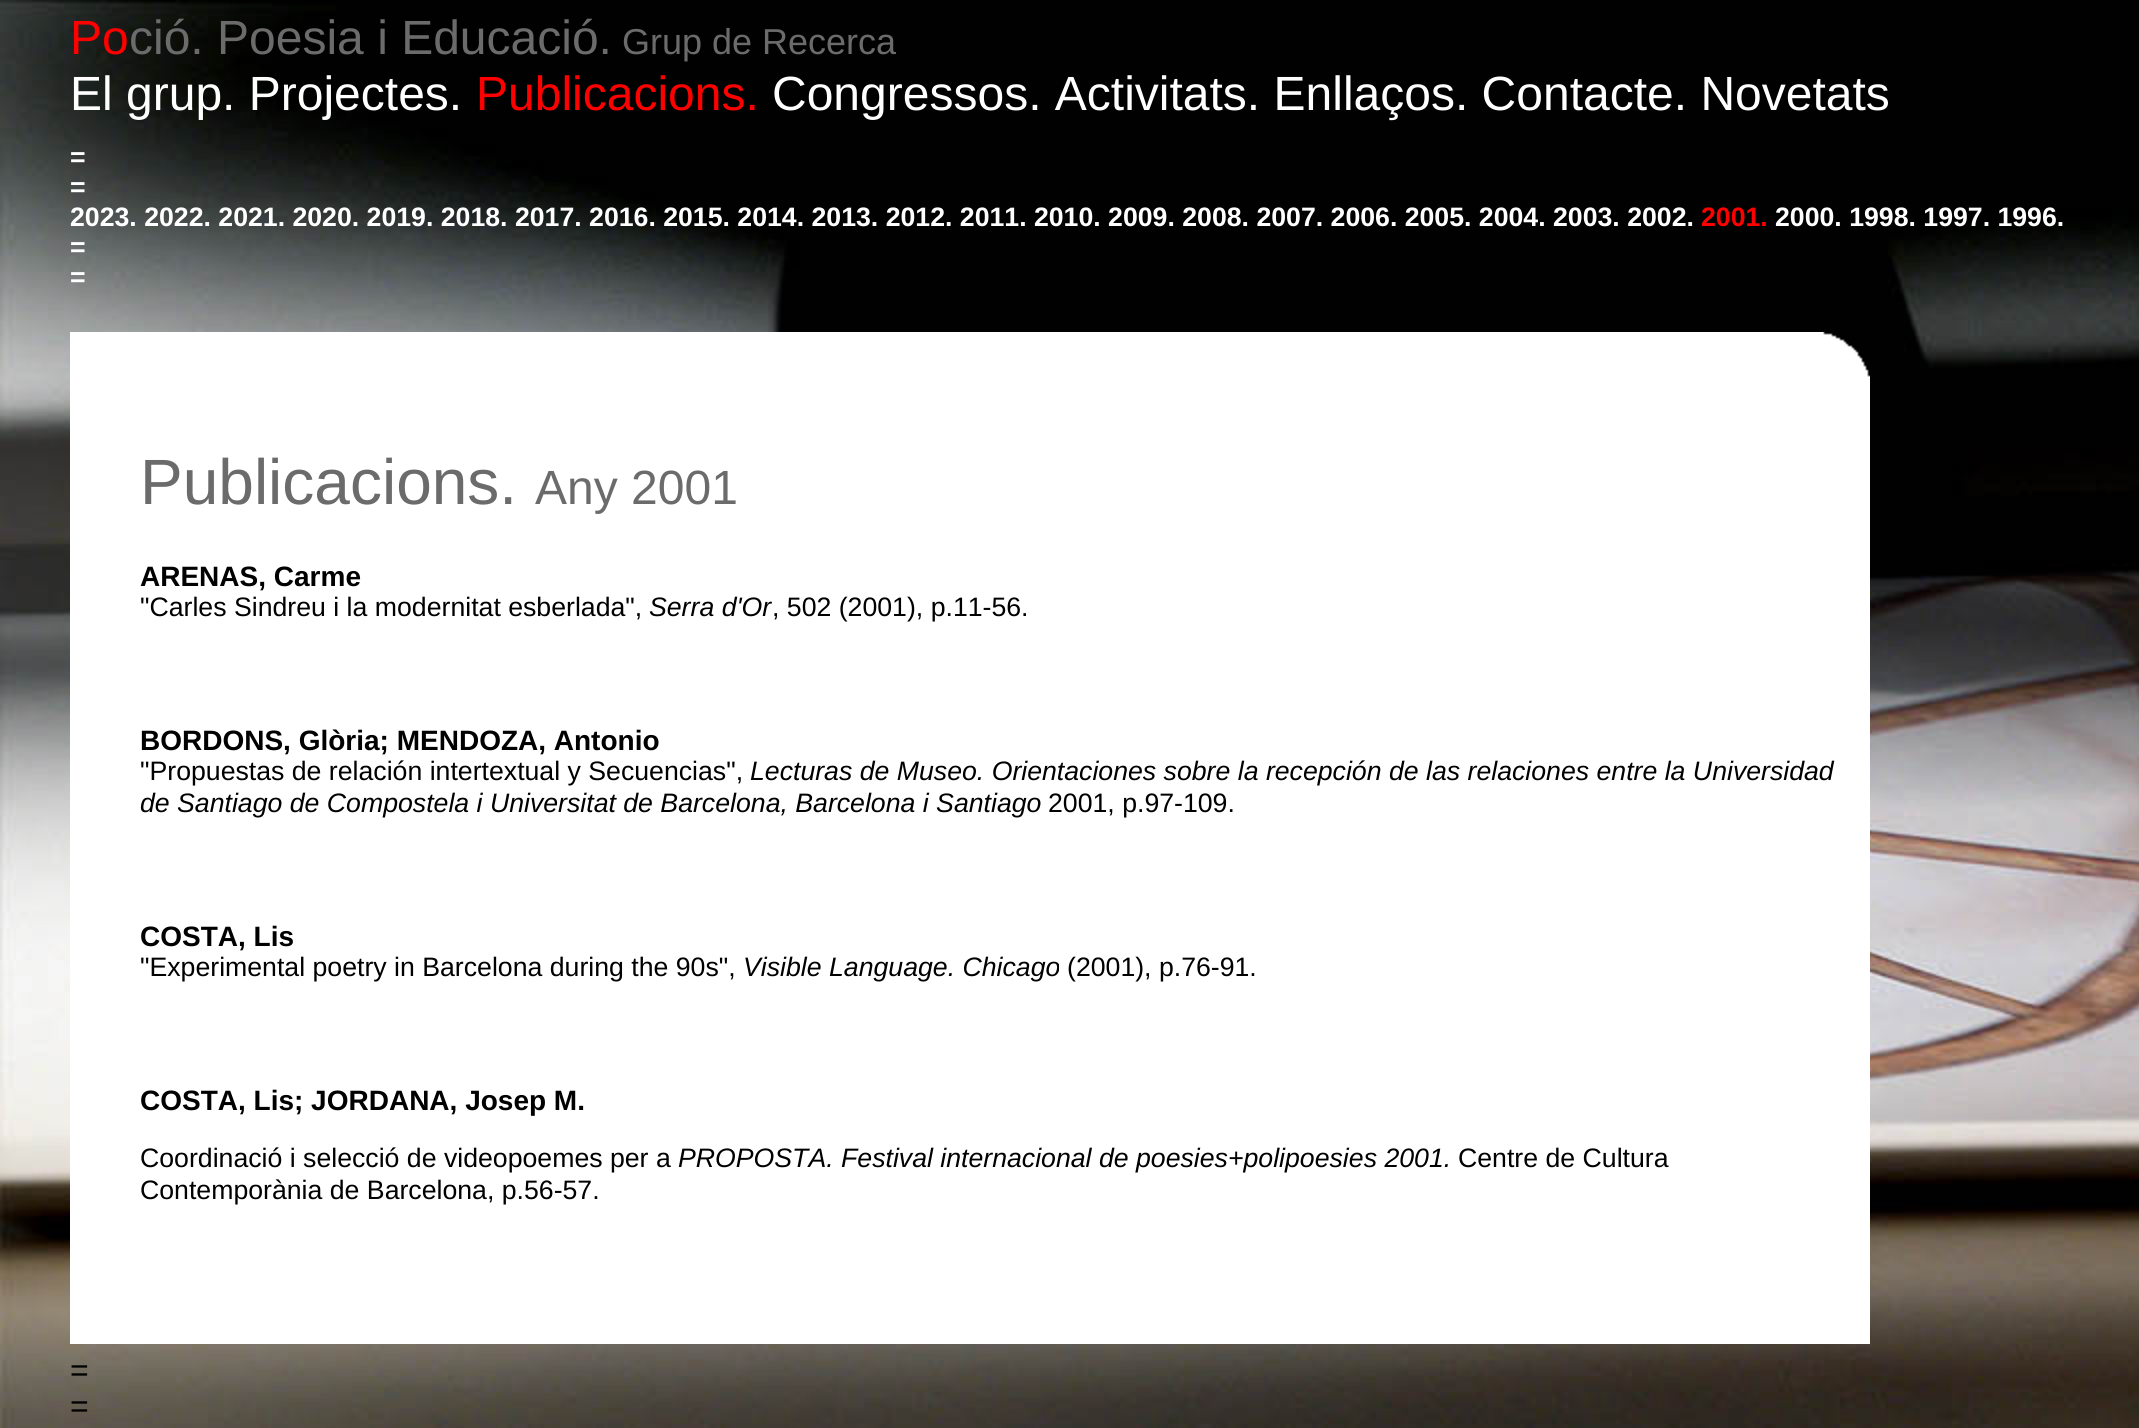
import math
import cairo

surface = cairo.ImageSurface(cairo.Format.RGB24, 2139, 1428)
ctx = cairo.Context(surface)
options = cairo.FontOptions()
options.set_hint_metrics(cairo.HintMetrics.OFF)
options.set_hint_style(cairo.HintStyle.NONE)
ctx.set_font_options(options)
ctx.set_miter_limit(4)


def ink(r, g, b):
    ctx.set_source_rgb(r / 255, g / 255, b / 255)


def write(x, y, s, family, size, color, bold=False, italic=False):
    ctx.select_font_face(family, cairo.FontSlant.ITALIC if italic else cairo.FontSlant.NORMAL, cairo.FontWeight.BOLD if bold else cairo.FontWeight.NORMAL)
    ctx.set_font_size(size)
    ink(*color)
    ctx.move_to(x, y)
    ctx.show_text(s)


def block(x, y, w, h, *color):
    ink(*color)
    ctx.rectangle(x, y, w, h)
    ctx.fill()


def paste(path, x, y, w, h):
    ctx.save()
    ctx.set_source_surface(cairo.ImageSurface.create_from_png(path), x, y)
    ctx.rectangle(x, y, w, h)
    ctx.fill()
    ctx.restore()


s1 = dict(family="Liberation Sans", size=48, color=(255, 0, 0))
s2 = dict(family="Liberation Sans", size=48, color=(107, 107, 107))
s3 = dict(family="Liberation Sans", size=36, color=(107, 107, 107))
s4 = dict(family="Liberation Sans", size=48, color=(255, 255, 255))
s5 = dict(family="Liberation Sans", size=26.67, color=(255, 255, 255), bold=True)
s6 = dict(family="Liberation Sans", size=26.67, color=(255, 0, 0), bold=True)
s7 = dict(family="Liberation Sans", size=64, color=(107, 107, 107))
s8 = dict(family="Liberation Sans", size=28, color=(0, 0, 0), bold=True)
s9 = dict(family="Liberation Sans", size=26.67, color=(0, 0, 0))
s10 = dict(family="Liberation Sans", size=26.67, color=(0, 0, 0), italic=True)
s11 = dict(family="Liberation Sans", size=32, color=(0, 0, 0))

ink(255, 255, 255)
ctx.paint()
paste("pic1.png", 0, 0, 2139, 1428)
write(70, 54, "Po", **s1)
write(129, 54, "ció. Poesia i Educació.", **s2)
write(622, 54, "Grup de Recerca", **s3)
write(70, 110, "El grup. Projectes.", **s4)
write(476, 110, "Publicacions.", **s1)
write(772, 110, "Congressos. Activitats. Enllaços. Contacte. Novetats", **s4)
write(70, 166, "=", **s5)
write(70, 196, "=", **s5)
write(70, 226, "2023. 2022. 2021. 2020. 2019. 2018. 2017. 2016. 2015. 2014. 2013. 2012. 2011. 2010. 2009. 2008. 2007. 2006. 2005. 2004. 2003. 2002.", **s5)
write(1701, 226, "2001.", **s6)
write(1775, 226, "2000. 1998. 1997. 1996.", **s5)
write(70, 256, "=", **s5)
write(70, 286, "=", **s5)
paste("pic2.png", 70, 332, 1800, 54)
block(70, 386, 1800, 958, 255, 255, 255)
write(140, 504, "Publicacions.", **s7)
write(535, 504, "Any 2001", **s2)
write(140, 586, "ARENAS, Carme", **s8)
write(140, 616, "\"Carles Sindreu i la modernitat esberlada\",", **s9)
write(649, 616, "Serra d'Or", **s10)
write(772, 616, ", 502 (2001), p.11-56.", **s9)
write(140, 750, "BORDONS, Glòria; MENDOZA, Antonio", **s8)
write(140, 780, "\"Propuestas de relación intertextual y Secuencias\",", **s9)
write(750, 780, "Lecturas de Museo. Orientaciones sobre la recepción de las relaciones entre la Universidad", **s10)
write(140, 812, "de Santiago de Compostela i Universitat de Barcelona, Barcelona i Santiago", **s10)
write(1048, 812, "2001, p.97-109.", **s9)
write(140, 946, "COSTA, Lis", **s8)
write(140, 976, "\"Experimental poetry in Barcelona during the 90s\",", **s9)
write(743, 976, "Visible Language. Chicago", **s10)
write(1067, 976, "(2001), p.76-91.", **s9)
write(140, 1110, "COSTA, Lis; JORDANA, Josep M.", **s8)
write(140, 1167, "Coordinació i selecció de videopoemes per a", **s9)
write(678, 1167, "PROPOSTA. Festival internacional de poesies+polipoesies 2001.", **s10)
write(1458, 1167, "Centre de Cultura", **s9)
write(140, 1199, "Contemporània de Barcelona, p.56-57.", **s9)
write(70, 1381, "=", **s11)
write(70, 1417, "=", **s11)
surface.write_to_png("screenshot.png")
